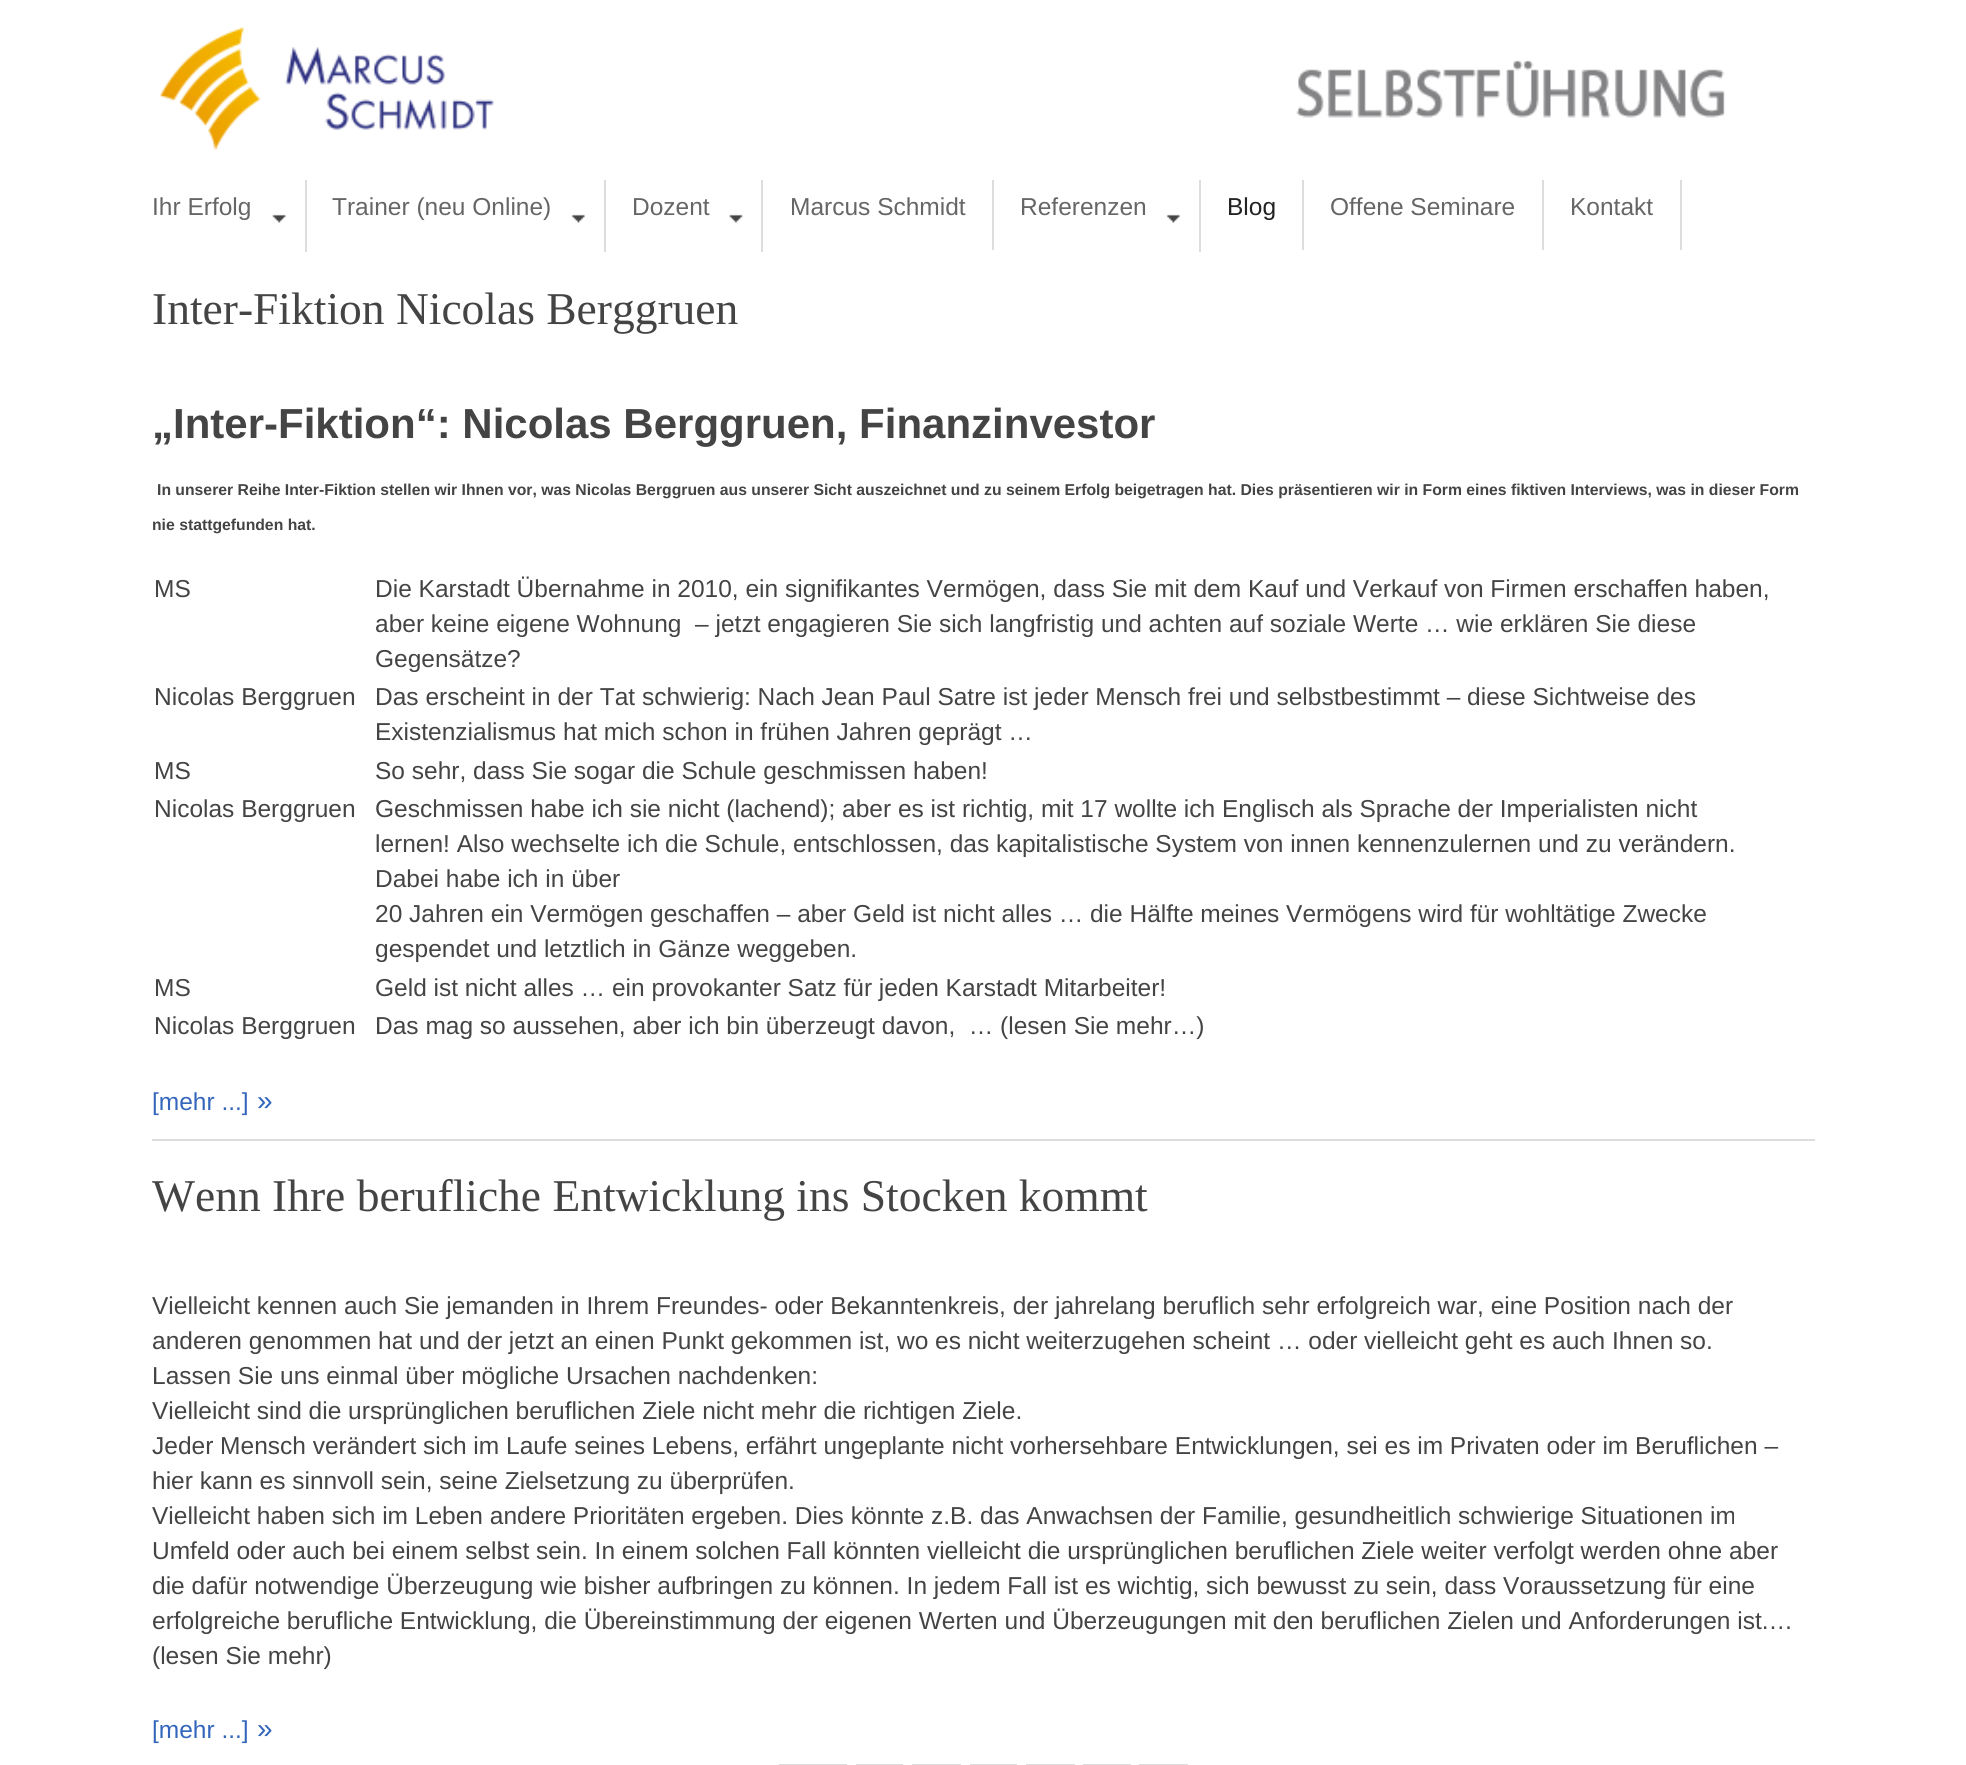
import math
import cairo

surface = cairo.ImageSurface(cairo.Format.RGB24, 1966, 1765)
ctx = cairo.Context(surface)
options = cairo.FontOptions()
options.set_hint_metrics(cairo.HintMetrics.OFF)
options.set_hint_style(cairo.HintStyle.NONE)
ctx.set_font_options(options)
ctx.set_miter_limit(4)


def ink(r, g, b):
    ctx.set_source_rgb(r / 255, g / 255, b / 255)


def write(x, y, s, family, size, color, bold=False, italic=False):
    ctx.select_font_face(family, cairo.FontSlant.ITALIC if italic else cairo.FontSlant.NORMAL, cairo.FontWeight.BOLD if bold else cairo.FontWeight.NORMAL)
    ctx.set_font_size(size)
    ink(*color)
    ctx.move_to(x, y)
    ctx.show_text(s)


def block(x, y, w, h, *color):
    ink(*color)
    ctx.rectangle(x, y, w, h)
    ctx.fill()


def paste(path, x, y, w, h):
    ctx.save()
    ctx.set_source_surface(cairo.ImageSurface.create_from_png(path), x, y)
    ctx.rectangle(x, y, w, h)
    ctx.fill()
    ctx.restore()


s1 = dict(family="Liberation Sans", size=24.5, color=(102, 102, 102))
s2 = dict(family="Liberation Sans", size=24.5, color=(34, 34, 34))
s3 = dict(family="Liberation Serif", size=45.5, color=(68, 68, 68))
s4 = dict(family="Liberation Sans", size=42, color=(68, 68, 68), bold=True)
s5 = dict(family="Liberation Sans", size=15.75, color=(68, 68, 68), bold=True)
s6 = dict(family="Liberation Sans", size=24.5, color=(68, 68, 68))
s7 = dict(family="Liberation Sans", size=24.5, color=(51, 102, 187))
s8 = dict(family="Liberation Sans", size=28, color=(51, 102, 187))

ink(255, 255, 255)
ctx.paint()
paste("pic1.png", 159, 27, 1566, 124)
paste("pic2.png", 272, 214, 14, 9)
block(305, 180, 2, 72, 221, 221, 221)
write(152, 215, "Ihr Erfolg", **s1)
paste("pic3.png", 571, 214, 14, 9)
block(604, 180, 2, 72, 221, 221, 221)
write(332, 215, "Trainer (neu Online)", **s1)
paste("pic4.png", 729, 214, 14, 9)
block(761, 180, 2, 72, 221, 221, 221)
write(632, 215, "Dozent", **s1)
block(992, 180, 2, 70, 221, 221, 221)
write(790, 215, "Marcus Schmidt", **s1)
paste("pic5.png", 1166, 214, 14, 9)
block(1199, 180, 2, 72, 221, 221, 221)
write(1020, 215, "Referenzen", **s1)
block(1302, 180, 2, 70, 221, 221, 221)
write(1227, 215, "Blog", **s2)
block(1542, 180, 2, 70, 221, 221, 221)
write(1330, 215, "Offene Seminare", **s1)
block(1680, 180, 2, 70, 221, 221, 221)
write(1570, 215, "Kontakt", **s1)
write(152, 324, "Inter-Fiktion Nicolas Berggruen", **s3)
write(152, 438, "„Inter-Fiktion“: Nicolas Berggruen, Finanzinvestor", **s4)
write(157, 495, "In unserer Reihe Inter-Fiktion stellen wir Ihnen vor, was Nicolas Berggruen aus unserer Sicht auszeichnet und zu seinem Erfolg beigetragen hat. Dies präsentieren wir in Form eines fiktiven Interviews, was in dieser Form", **s5)
write(152, 530, "nie stattgefunden hat.", **s5)
write(154, 597, "MS", **s6)
write(375, 597, "Die Karstadt Übernahme in 2010, ein signifikantes Vermögen, dass Sie mit dem Kauf und Verkauf von Firmen erschaffen haben,", **s6)
write(375, 632, "aber keine eigene Wohnung  – jetzt engagieren Sie sich langfristig und achten auf soziale Werte … wie erklären Sie diese", **s6)
write(375, 667, "Gegensätze?", **s6)
write(154, 705, "Nicolas Berggruen", **s6)
write(375, 705, "Das erscheint in der Tat schwierig: Nach Jean Paul Satre ist jeder Mensch frei und selbstbestimmt – diese Sichtweise des", **s6)
write(375, 740, "Existenzialismus hat mich schon in frühen Jahren geprägt …", **s6)
write(154, 779, "MS", **s6)
write(375, 779, "So sehr, dass Sie sogar die Schule geschmissen haben!", **s6)
write(154, 817, "Nicolas Berggruen", **s6)
write(375, 817, "Geschmissen habe ich sie nicht (lachend); aber es ist richtig, mit 17 wollte ich Englisch als Sprache der Imperialisten nicht", **s6)
write(375, 852, "lernen! Also wechselte ich die Schule, entschlossen, das kapitalistische System von innen kennenzulernen und zu verändern.", **s6)
write(375, 887, "Dabei habe ich in über", **s6)
write(375, 922, "20 Jahren ein Vermögen geschaffen – aber Geld ist nicht alles … die Hälfte meines Vermögens wird für wohltätige Zwecke", **s6)
write(375, 957, "gespendet und letztlich in Gänze weggeben.", **s6)
write(154, 996, "MS", **s6)
write(375, 996, "Geld ist nicht alles … ein provokanter Satz für jeden Karstadt Mitarbeiter!", **s6)
write(154, 1034, "Nicolas Berggruen", **s6)
write(375, 1034, "Das mag so aussehen, aber ich bin überzeugt davon,  … (lesen Sie mehr…)", **s6)
write(152, 1110, "[mehr ...]", **s7)
write(257, 1110, "»", **s8)
block(152, 1139, 1663, 2, 221, 221, 221)
write(152, 1211, "Wenn Ihre berufliche Entwicklung ins Stocken kommt", **s3)
write(152, 1314, "Vielleicht kennen auch Sie jemanden in Ihrem Freundes- oder Bekanntenkreis, der jahrelang beruflich sehr erfolgreich war, eine Position nach der", **s6)
write(152, 1349, "anderen genommen hat und der jetzt an einen Punkt gekommen ist, wo es nicht weiterzugehen scheint … oder vielleicht geht es auch Ihnen so.", **s6)
write(152, 1384, "Lassen Sie uns einmal über mögliche Ursachen nachdenken:", **s6)
write(152, 1419, "Vielleicht sind die ursprünglichen beruflichen Ziele nicht mehr die richtigen Ziele.", **s6)
write(152, 1454, "Jeder Mensch verändert sich im Laufe seines Lebens, erfährt ungeplante nicht vorhersehbare Entwicklungen, sei es im Privaten oder im Beruflichen –", **s6)
write(152, 1489, "hier kann es sinnvoll sein, seine Zielsetzung zu überprüfen.", **s6)
write(152, 1524, "Vielleicht haben sich im Leben andere Prioritäten ergeben. Dies könnte z.B. das Anwachsen der Familie, gesundheitlich schwierige Situationen im", **s6)
write(152, 1559, "Umfeld oder auch bei einem selbst sein. In einem solchen Fall könnten vielleicht die ursprünglichen beruflichen Ziele weiter verfolgt werden ohne aber", **s6)
write(152, 1594, "die dafür notwendige Überzeugung wie bisher aufbringen zu können. In jedem Fall ist es wichtig, sich bewusst zu sein, dass Voraussetzung für eine", **s6)
write(152, 1629, "erfolgreiche berufliche Entwicklung, die Übereinstimmung der eigenen Werten und Überzeugungen mit den beruflichen Zielen und Anforderungen ist.…", **s6)
write(152, 1664, "(lesen Sie mehr)", **s6)
write(152, 1738, "[mehr ...]", **s7)
write(257, 1738, "»", **s8)
ctx.rectangle(780, 1765, 66, 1)
ink(221, 221, 221)
ctx.stroke()
ctx.rectangle(857, 1765, 45, 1)
ctx.stroke()
ctx.rectangle(913, 1765, 47, 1)
ctx.stroke()
ctx.rectangle(971, 1765, 45, 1)
ctx.stroke()
ctx.rectangle(1027, 1765, 47, 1)
ctx.stroke()
ctx.rectangle(1084, 1765, 46, 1)
ctx.stroke()
ctx.rectangle(1140, 1765, 47, 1)
ctx.stroke()
surface.write_to_png("screenshot.png")
